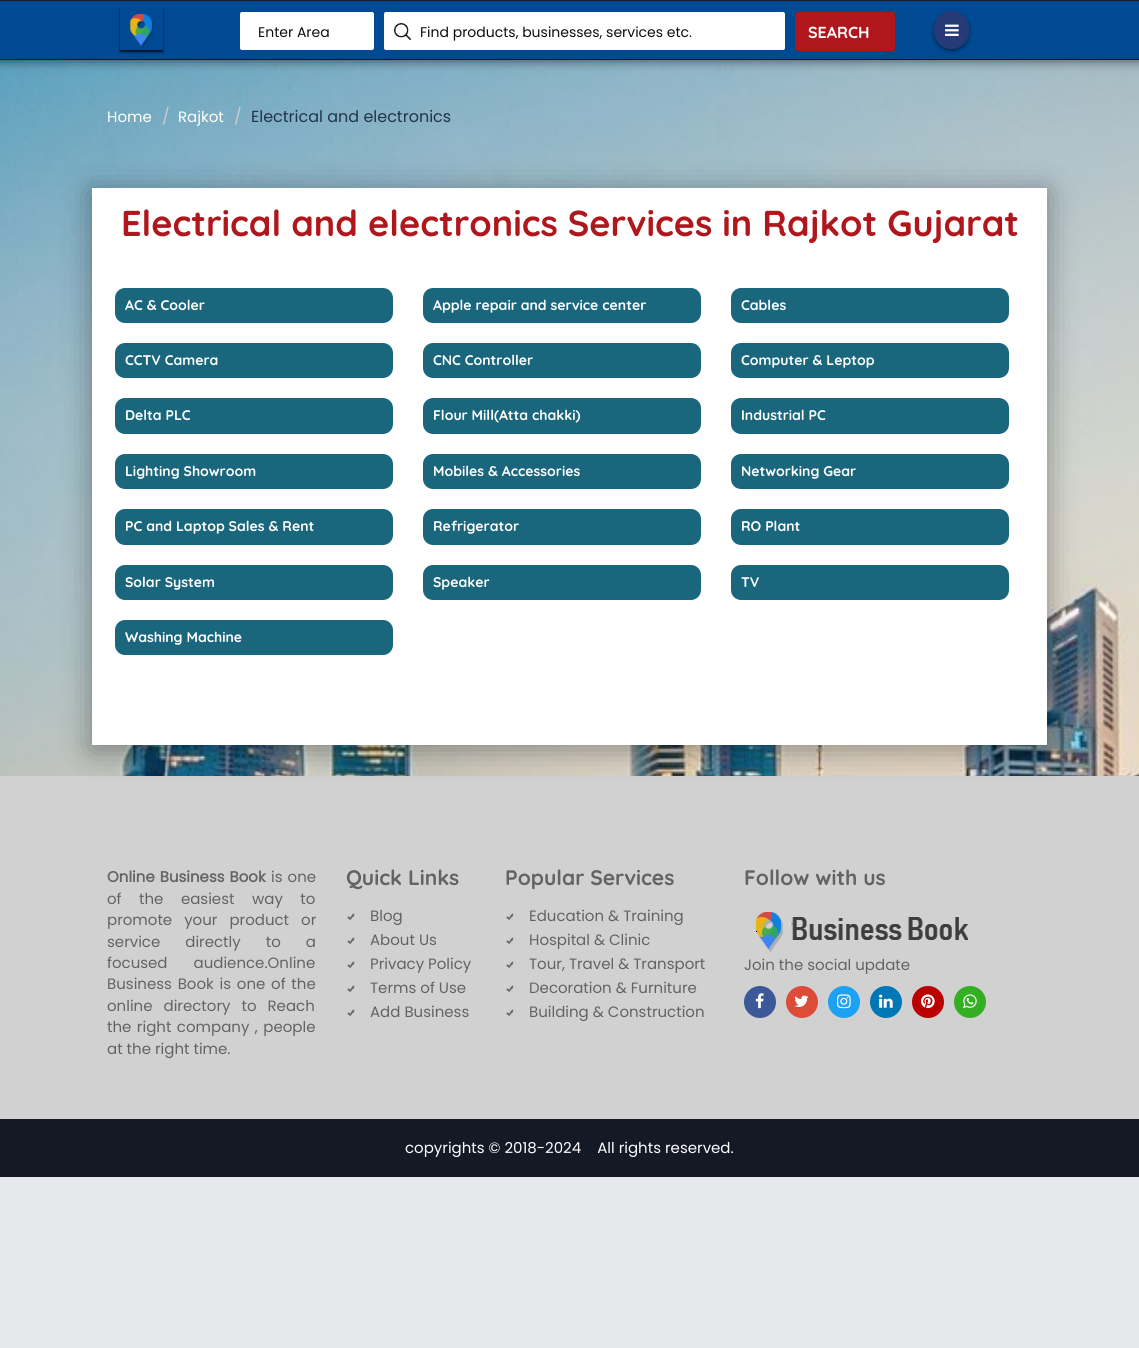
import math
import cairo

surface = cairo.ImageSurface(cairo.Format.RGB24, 1139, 1348)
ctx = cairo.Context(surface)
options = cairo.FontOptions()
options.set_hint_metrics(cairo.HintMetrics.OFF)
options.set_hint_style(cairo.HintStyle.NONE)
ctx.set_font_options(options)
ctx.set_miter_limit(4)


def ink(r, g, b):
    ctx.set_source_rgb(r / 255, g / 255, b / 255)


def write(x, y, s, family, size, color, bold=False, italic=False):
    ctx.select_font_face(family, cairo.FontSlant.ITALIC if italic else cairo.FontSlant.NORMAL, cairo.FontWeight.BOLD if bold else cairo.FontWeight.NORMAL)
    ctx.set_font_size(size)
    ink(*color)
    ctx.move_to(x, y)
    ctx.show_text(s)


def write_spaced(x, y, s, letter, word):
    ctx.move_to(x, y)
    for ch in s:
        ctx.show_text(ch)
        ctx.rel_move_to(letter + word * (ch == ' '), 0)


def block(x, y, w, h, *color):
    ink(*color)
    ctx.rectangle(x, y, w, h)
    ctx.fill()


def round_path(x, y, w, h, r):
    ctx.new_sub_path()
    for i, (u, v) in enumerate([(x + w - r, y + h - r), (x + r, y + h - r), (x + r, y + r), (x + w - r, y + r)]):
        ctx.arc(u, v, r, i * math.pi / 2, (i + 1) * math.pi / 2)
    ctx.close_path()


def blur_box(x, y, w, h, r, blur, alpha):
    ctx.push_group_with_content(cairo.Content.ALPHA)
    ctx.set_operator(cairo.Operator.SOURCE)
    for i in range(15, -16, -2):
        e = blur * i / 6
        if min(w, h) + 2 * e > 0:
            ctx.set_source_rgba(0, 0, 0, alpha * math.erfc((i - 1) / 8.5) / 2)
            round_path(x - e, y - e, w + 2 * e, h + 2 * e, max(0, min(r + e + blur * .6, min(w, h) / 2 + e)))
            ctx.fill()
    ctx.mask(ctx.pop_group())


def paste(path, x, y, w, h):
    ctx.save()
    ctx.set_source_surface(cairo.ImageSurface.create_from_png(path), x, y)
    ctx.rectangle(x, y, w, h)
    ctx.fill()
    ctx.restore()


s1 = dict(family="Poppins", size=14, color=(14, 14, 14))
s2 = dict(family="Quicksand", size=16, color=(255, 255, 255), bold=True)
s3 = dict(family="Poppins", size=15, color=(255, 255, 255))
s4 = dict(family="Poppins", size=16, color=(204, 204, 204))
s5 = dict(family="Poppins", size=16, color=(32, 52, 76))
s6 = dict(family="Quicksand", size=36, color=(175, 23, 29), bold=True)
s7 = dict(family="Quicksand", size=14, color=(255, 255, 255), bold=True)
s8 = dict(family="Poppins", size=15, color=(99, 99, 99))
s9 = dict(family="Quicksand", size=21, color=(99, 99, 99), bold=True)

ink(229, 233, 236)
ctx.paint()
paste("pic4.png", 0, 60, 1139, 716)
ink(0, 0, 0)
blur_box(-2, -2, 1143, 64, 0, 5, 0.47)
block(0, 1, 1139, 58, 0, 74, 148)
block(0, 0, 1139, 1, 21, 31, 49)
block(0, 59, 1139, 1, 17, 26, 41)
ctx.save()
ctx.set_fill_rule(cairo.FillRule.EVEN_ODD)
ctx.new_path()
ctx.move_to(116, 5)
ctx.line_to(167, 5)
ctx.line_to(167, 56)
ctx.line_to(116, 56)
ctx.close_path()
ctx.move_to(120, 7)
ctx.line_to(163, 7)
ctx.line_to(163, 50)
ctx.line_to(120, 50)
ctx.close_path()
ctx.clip()
ink(0, 0, 0)
blur_box(120, 9, 43, 43, 0, 1, 0.8)
ctx.restore()
paste("pic1.png", 130, 14, 24, 34)
ink(255, 255, 255)
round_path(240, 12, 134, 38, 2)
ctx.fill()
write(258, 37, "Enter Area", **s1)
ink(255, 255, 255)
round_path(384, 12, 401, 38, 2)
ctx.fill()
paste("pic2.png", 394, 23, 17, 17)
write(420, 37, "Find products, businesses, services etc.", **s1)
ink(175, 23, 29)
round_path(795, 12, 100, 39, 3)
ctx.fill()
write(808, 38, "SEARCH", **s2)
ink(0, 0, 0)
blur_box(934, 13, 35, 38, 17.5, 2, 0.45)
ink(38, 58, 120)
round_path(934, 11, 35, 38, 17.5)
ctx.fill()
paste("pic3.png", 945, 24, 14, 12)
write(107, 122, "Home", **s3)
write(162, 122, "/", **s4)
write(178, 122, "Rajkot", **s3)
write(234, 122, "/", **s4)
write(251, 122, "Electrical and electronics", **s5)
block(0, 776, 1139, 343, 209, 209, 209)
ink(0, 0, 0)
blur_box(92, 192, 955, 557, 0, 15, 0.36)
block(92, 188, 955, 557, 255, 255, 255)
write(121, 236, "Electrical and electronics Services in Rajkot Gujarat", **s6)
ink(25, 102, 125)
round_path(115, 288, 278, 35, 10)
ctx.fill()
write(125, 310, "AC & Cooler", **s7)
ink(25, 102, 125)
round_path(423, 288, 278, 35, 10)
ctx.fill()
write(433, 310, "Apple repair and service center", **s7)
ink(25, 102, 125)
round_path(731, 288, 278, 35, 10)
ctx.fill()
write(741, 310, "Cables", **s7)
ink(25, 102, 125)
round_path(115, 343, 278, 35, 10)
ctx.fill()
write(125, 365, "CCTV Camera", **s7)
ink(25, 102, 125)
round_path(423, 343, 278, 35, 10)
ctx.fill()
write(433, 365, "CNC Controller", **s7)
ink(25, 102, 125)
round_path(731, 343, 278, 35, 10)
ctx.fill()
write(741, 365, "Computer & Leptop", **s7)
ink(25, 102, 125)
round_path(115, 398, 278, 36, 10)
ctx.fill()
write(125, 420, "Delta PLC", **s7)
ink(25, 102, 125)
round_path(423, 398, 278, 36, 10)
ctx.fill()
write(433, 420, "Flour Mill(Atta chakki)", **s7)
ink(25, 102, 125)
round_path(731, 398, 278, 36, 10)
ctx.fill()
write(741, 420, "Industrial PC", **s7)
ink(25, 102, 125)
round_path(115, 454, 278, 35, 10)
ctx.fill()
write(125, 476, "Lighting Showroom", **s7)
ink(25, 102, 125)
round_path(423, 454, 278, 35, 10)
ctx.fill()
write(433, 476, "Mobiles & Accessories", **s7)
ink(25, 102, 125)
round_path(731, 454, 278, 35, 10)
ctx.fill()
write(741, 476, "Networking Gear", **s7)
ink(25, 102, 125)
round_path(115, 509, 278, 36, 10)
ctx.fill()
write(125, 531, "PC and Laptop Sales & Rent", **s7)
ink(25, 102, 125)
round_path(423, 509, 278, 36, 10)
ctx.fill()
write(433, 531, "Refrigerator", **s7)
ink(25, 102, 125)
round_path(731, 509, 278, 36, 10)
ctx.fill()
write(741, 531, "RO Plant", **s7)
ink(25, 102, 125)
round_path(115, 565, 278, 35, 10)
ctx.fill()
write(125, 587, "Solar System", **s7)
ink(25, 102, 125)
round_path(423, 565, 278, 35, 10)
ctx.fill()
write(433, 587, "Speaker", **s7)
ink(25, 102, 125)
round_path(731, 565, 278, 35, 10)
ctx.fill()
write(741, 587, "TV", **s7)
ink(25, 102, 125)
round_path(115, 620, 278, 35, 10)
ctx.fill()
write(125, 642, "Washing Machine", **s7)
ctx.select_font_face("Poppins", cairo.FontSlant.NORMAL, cairo.FontWeight.BOLD)
ctx.set_font_size(15)
ink(99, 99, 99)
write_spaced(107, 882, "Online Business Book", 0, 1)
ctx.select_font_face("Poppins")
write_spaced(271, 882, "is one", 0, 1)
write_spaced(107, 904, "of the easiest way to", 0, 13.5)
write_spaced(107, 925, "promote your product or", 0, 8)
write_spaced(107, 947, "service directly to a", 0, 21)
write_spaced(107, 968, "focused audience.Online", 0, 22)
write_spaced(107, 989, "Business Book is one of the", 0, 1.75)
write_spaced(107, 1011, "online directory to Reach", 0, 7)
write_spaced(107, 1032, "the right company , people", 0, 1.5)
write(107, 1054, "at the right time.", **s8)
write(346, 885, "Quick Links", **s9)
paste("pic5.png", 347, 913, 8, 8)
write(370, 921, "Blog", **s8)
paste("pic6.png", 347, 937, 8, 8)
write(370, 945, "About Us", **s8)
paste("pic6.png", 347, 961, 8, 8)
write(370, 969, "Privacy Policy", **s8)
paste("pic5.png", 347, 985, 8, 8)
write(370, 993, "Terms of Use", **s8)
paste("pic6.png", 347, 1009, 8, 8)
write(370, 1017, "Add Business", **s8)
write(505, 885, "Popular Services", **s9)
paste("pic6.png", 506, 913, 8, 8)
write(529, 921, "Education & Training", **s8)
paste("pic7.png", 506, 937, 8, 8)
write(529, 945, "Hospital & Clinic", **s8)
paste("pic7.png", 506, 961, 8, 8)
write(529, 969, "Tour, Travel & Transport", **s8)
paste("pic6.png", 506, 985, 8, 8)
write(529, 993, "Decoration & Furniture", **s8)
paste("pic7.png", 506, 1009, 8, 8)
write(529, 1017, "Building & Construction", **s8)
write(744, 885, "Follow with us", **s9)
paste("pic8.png", 756, 912, 212, 40)
write(744, 970, "Join the social update", **s8)
ink(59, 89, 152)
ctx.new_path()
ctx.arc(760, 1002, 16, 0, 2 * math.pi)
ctx.fill()
paste("pic9.png", 755, 993, 9, 16)
ink(221, 75, 57)
ctx.arc(802, 1002, 16, 0, 2 * math.pi)
ctx.fill()
paste("pic10.png", 794, 995, 15, 12)
ink(29, 161, 242)
ctx.arc(844, 1002, 16, 0, 2 * math.pi)
ctx.fill()
paste("pic11.png", 837, 994, 14, 15)
ink(0, 119, 181)
ctx.arc(886, 1002, 16, 0, 2 * math.pi)
ctx.fill()
paste("pic12.png", 879, 994, 14, 14)
ink(187, 0, 0)
ctx.arc(928, 1002, 16, 0, 2 * math.pi)
ctx.fill()
paste("pic13.png", 921, 994, 14, 15)
ink(52, 175, 35)
ctx.arc(970, 1002, 16, 0, 2 * math.pi)
ctx.fill()
paste("pic14.png", 963, 994, 14, 15)
block(0, 1119, 1139, 58, 19, 25, 37)
write(405, 1153, "copyrights © 2018-2024    All rights reserved.", **s3)
surface.write_to_png("screenshot.png")
